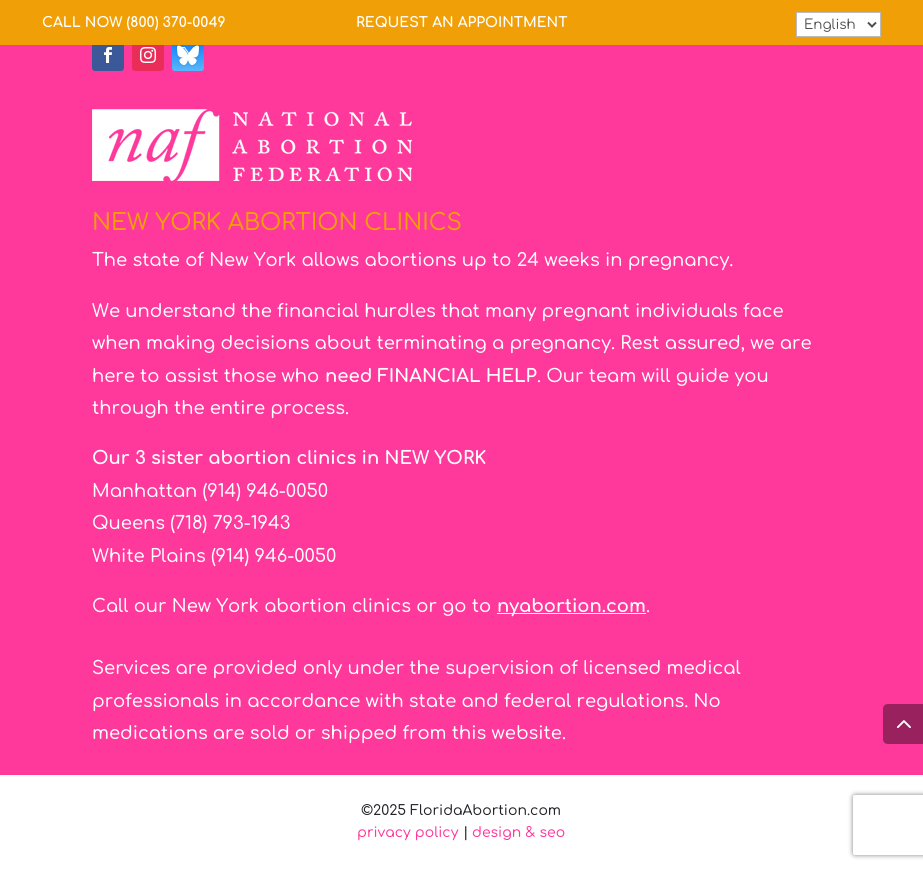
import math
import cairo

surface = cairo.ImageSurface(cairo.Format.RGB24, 923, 869)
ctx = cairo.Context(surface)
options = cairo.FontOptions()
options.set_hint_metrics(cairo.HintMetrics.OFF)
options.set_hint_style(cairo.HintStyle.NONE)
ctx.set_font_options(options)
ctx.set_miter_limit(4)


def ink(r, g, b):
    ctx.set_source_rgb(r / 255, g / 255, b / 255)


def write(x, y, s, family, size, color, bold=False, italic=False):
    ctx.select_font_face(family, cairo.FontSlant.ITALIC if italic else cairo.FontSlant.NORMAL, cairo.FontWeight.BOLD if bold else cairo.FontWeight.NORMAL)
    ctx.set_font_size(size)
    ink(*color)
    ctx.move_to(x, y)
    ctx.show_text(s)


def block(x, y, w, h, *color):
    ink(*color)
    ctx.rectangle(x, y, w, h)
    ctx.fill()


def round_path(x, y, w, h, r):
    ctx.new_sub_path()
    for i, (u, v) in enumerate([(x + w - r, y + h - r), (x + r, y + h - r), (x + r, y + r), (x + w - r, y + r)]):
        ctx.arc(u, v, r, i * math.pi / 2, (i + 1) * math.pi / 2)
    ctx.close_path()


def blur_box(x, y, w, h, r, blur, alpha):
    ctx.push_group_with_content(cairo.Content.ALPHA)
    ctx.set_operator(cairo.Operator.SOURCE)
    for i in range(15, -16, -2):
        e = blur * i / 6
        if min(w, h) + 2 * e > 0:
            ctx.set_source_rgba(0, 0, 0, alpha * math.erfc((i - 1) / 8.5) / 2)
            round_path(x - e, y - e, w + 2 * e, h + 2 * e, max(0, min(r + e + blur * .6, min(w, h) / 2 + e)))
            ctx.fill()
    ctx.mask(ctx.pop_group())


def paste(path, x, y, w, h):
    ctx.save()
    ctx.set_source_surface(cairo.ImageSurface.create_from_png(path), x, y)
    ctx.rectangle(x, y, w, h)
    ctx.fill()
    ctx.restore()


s1 = dict(family="Comfortaa", size=14, color=(255, 255, 255), bold=True)
s2 = dict(family="Comfortaa", size=13.5, color=(78, 78, 78))
s3 = dict(family="Comfortaa Medium", size=23, color=(241, 159, 6))
s4 = dict(family="Comfortaa Medium", size=18, color=(255, 255, 255))
s5 = dict(family="Comfortaa", size=18, color=(255, 255, 255), bold=True)
s6 = dict(family="Comfortaa Medium", size=14, color=(37, 36, 41))
s7 = dict(family="Comfortaa Medium", size=14, color=(255, 56, 156))

ink(255, 255, 255)
ctx.paint()
block(0, 45, 923, 730, 255, 56, 156)
ink(59, 89, 152)
round_path(92, 39, 32, 32, 3)
ctx.fill()
ink(234, 44, 89)
round_path(132, 39, 32, 32, 3)
ctx.fill()
block(0, 0, 923, 45, 241, 159, 6)
write(42, 27, "CALL NOW (800) 370-0049", **s1)
write(356, 27, "REQUEST AN APPOINTMENT", **s1)
ctx.rectangle(796.5, 12.5, 84, 24)
ctx.fill_preserve()
ink(187, 187, 187)
ctx.set_line_width(1)
ctx.stroke()
ctx.new_path()
ctx.move_to(868, 22.5)
ctx.line_to(872, 26.5)
ctx.line_to(876, 22.5)
ink(78, 78, 78)
ctx.set_line_width(2)
ctx.stroke()
write(804, 29, "English", **s2)
paste("pic1.png", 104, 47, 8, 16)
paste("pic2.png", 140, 47, 16, 16)
paste("pic3.png", 172, 45, 32, 26)
paste("pic4.png", 180, 47, 16, 16)
paste("pic5.png", 92, 109, 320, 72)
write(92, 230, "NEW YORK ABORTION CLINICS", **s3)
write(92, 266, "The state of New York allows abortions up to 24 weeks in pregnancy.", **s4)
write(92, 317, "We understand the financial hurdles that many pregnant individuals face", **s4)
write(92, 349, "when making decisions about terminating a pregnancy. Rest assured, we are", **s4)
write(92, 382, "here to assist those who", **s4)
write(325, 382, "need FINANCIAL HELP", **s5)
write(537, 382, ". Our team will guide you", **s4)
write(92, 414, "through the entire process.", **s4)
write(92, 464, "Our 3 sister abortion clinics in NEW YORK", **s5)
write(92, 497, "Manhattan (914) 946-0050", **s4)
write(92, 529, "Queens (718) 793-1943", **s4)
write(92, 562, "White Plains (914) 946-0050", **s4)
write(92, 612, "Call our New York abortion clinics or go to", **s4)
block(497, 613, 149, 1, 255, 255, 255)
write(497, 612, "nyabortion.com", **s5)
write(646, 612, ".", **s4)
write(92, 674, "Services are provided only under the supervision of licensed medical", **s4)
write(92, 707, "professionals in accordance with state and federal regulations. No", **s4)
write(92, 739, "medications are sold or shipped from this website.", **s4)
write(361, 815, "©2025 FloridaAbortion.com", **s6)
write(357, 837, "privacy policy", **s7)
write(463, 837, "|", **s6)
write(472, 837, "design & seo", **s7)
ink(153, 34, 94)
ctx.new_path()
ctx.move_to(888, 704)
ctx.line_to(923, 704)
ctx.line_to(923, 744)
ctx.line_to(888, 744)
ctx.curve_to(885, 744, 883, 742, 883, 739)
ctx.line_to(883, 709)
ctx.curve_to(883, 706, 885, 704, 888, 704)
ctx.close_path()
ctx.fill()
paste("pic6.png", 896, 720, 15, 9)
ctx.save()
ctx.set_fill_rule(cairo.FillRule.EVEN_ODD)
ctx.new_path()
ctx.move_to(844, 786)
ctx.line_to(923, 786)
ctx.line_to(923, 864)
ctx.line_to(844, 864)
ctx.close_path()
ctx.move_to(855, 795)
ctx.line_to(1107, 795)
ctx.curve_to(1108, 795, 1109, 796, 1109, 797)
ctx.line_to(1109, 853)
ctx.curve_to(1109, 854, 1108, 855, 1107, 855)
ctx.line_to(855, 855)
ctx.curve_to(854, 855, 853, 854, 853, 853)
ctx.line_to(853, 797)
ctx.curve_to(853, 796, 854, 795, 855, 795)
ctx.close_path()
ctx.clip()
ink(128, 128, 128)
blur_box(853, 795, 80, 60, 2, 2.5, 1)
ctx.restore()
surface.write_to_png("screenshot.png")
